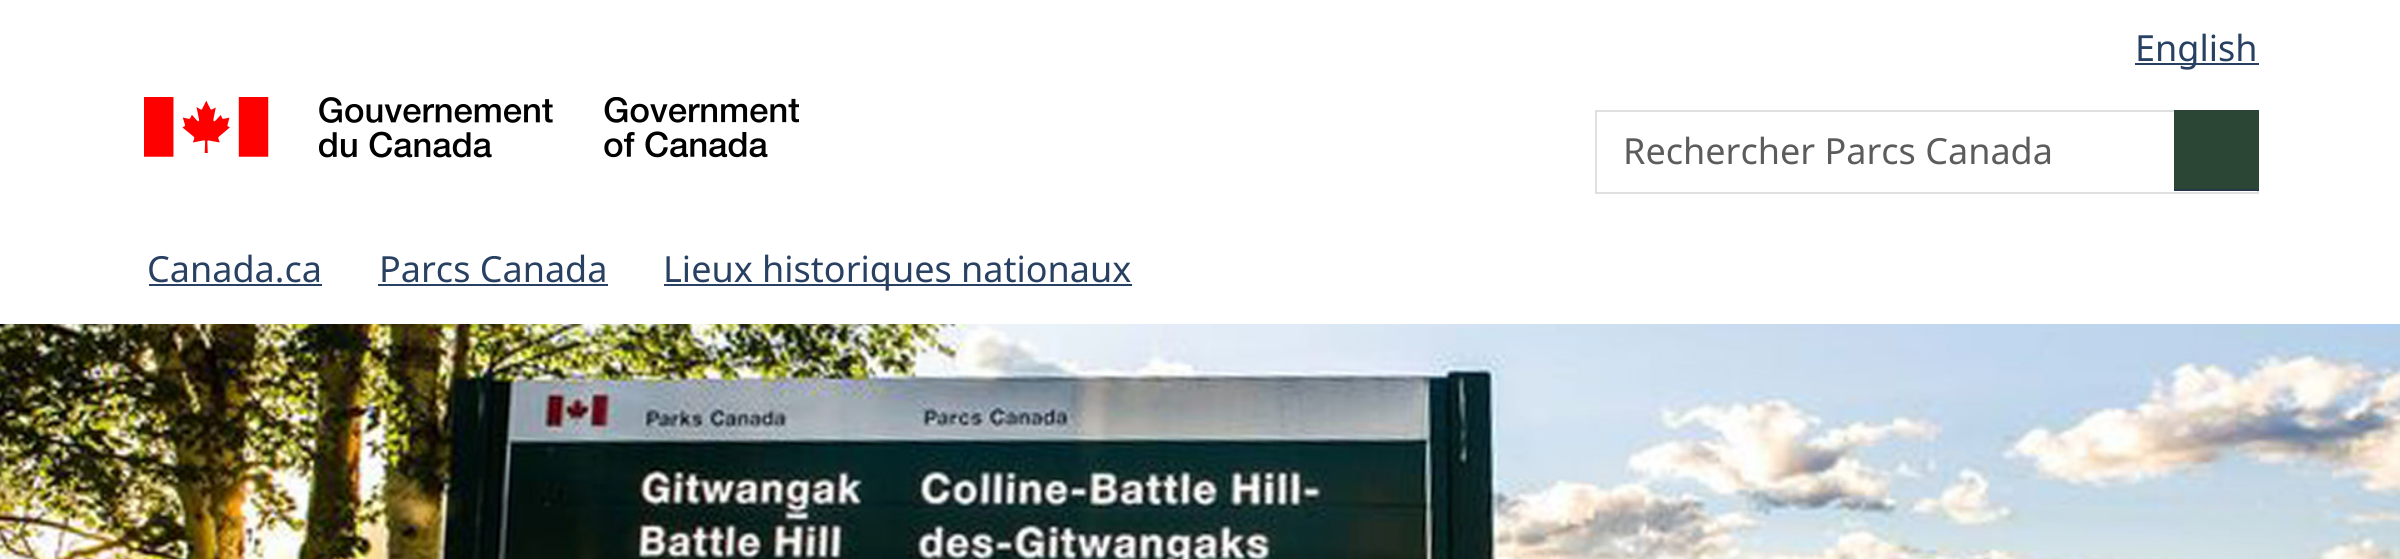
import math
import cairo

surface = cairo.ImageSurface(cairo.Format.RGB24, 2400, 559)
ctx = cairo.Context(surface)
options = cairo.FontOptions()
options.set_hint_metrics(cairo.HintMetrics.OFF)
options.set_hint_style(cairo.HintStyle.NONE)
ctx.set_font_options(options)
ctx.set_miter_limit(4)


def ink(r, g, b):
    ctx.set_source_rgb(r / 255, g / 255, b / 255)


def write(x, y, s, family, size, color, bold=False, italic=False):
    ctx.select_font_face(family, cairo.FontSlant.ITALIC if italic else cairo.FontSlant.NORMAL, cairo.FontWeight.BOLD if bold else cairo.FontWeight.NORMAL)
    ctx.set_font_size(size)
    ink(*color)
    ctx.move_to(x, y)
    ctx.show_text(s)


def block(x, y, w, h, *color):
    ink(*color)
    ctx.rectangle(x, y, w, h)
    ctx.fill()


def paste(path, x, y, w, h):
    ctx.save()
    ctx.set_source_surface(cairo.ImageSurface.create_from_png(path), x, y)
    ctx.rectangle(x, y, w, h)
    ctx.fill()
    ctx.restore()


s1 = dict(family="Noto Sans", size=36, color=(40, 65, 98))
s2 = dict(family="Noto Sans", size=36, color=(92, 92, 92))

ink(255, 255, 255)
ctx.paint()
block(2135, 63, 124, 2, 40, 65, 98)
write(2135, 61, "English", **s1)
paste("pic1.png", 144, 97, 655, 61)
ctx.rectangle(1596, 111, 662, 82)
ink(224, 224, 224)
ctx.stroke()
write(1623, 164, "Rechercher Parcs Canada", **s2)
block(2174, 110, 85, 79, 43, 70, 53)
block(2174, 189, 85, 2, 38, 55, 74)
write(147, 282, "Canada.ca", **s1)
block(149, 284, 173, 2, 40, 65, 98)
write(379, 282, "Parcs Canada", **s1)
block(378, 284, 230, 2, 40, 65, 98)
block(664, 284, 468, 2, 40, 65, 98)
write(663, 282, "Lieux historiques nationaux", **s1)
paste("pic2.png", 0, 324, 2400, 235)
surface.write_to_png("screenshot.png")
